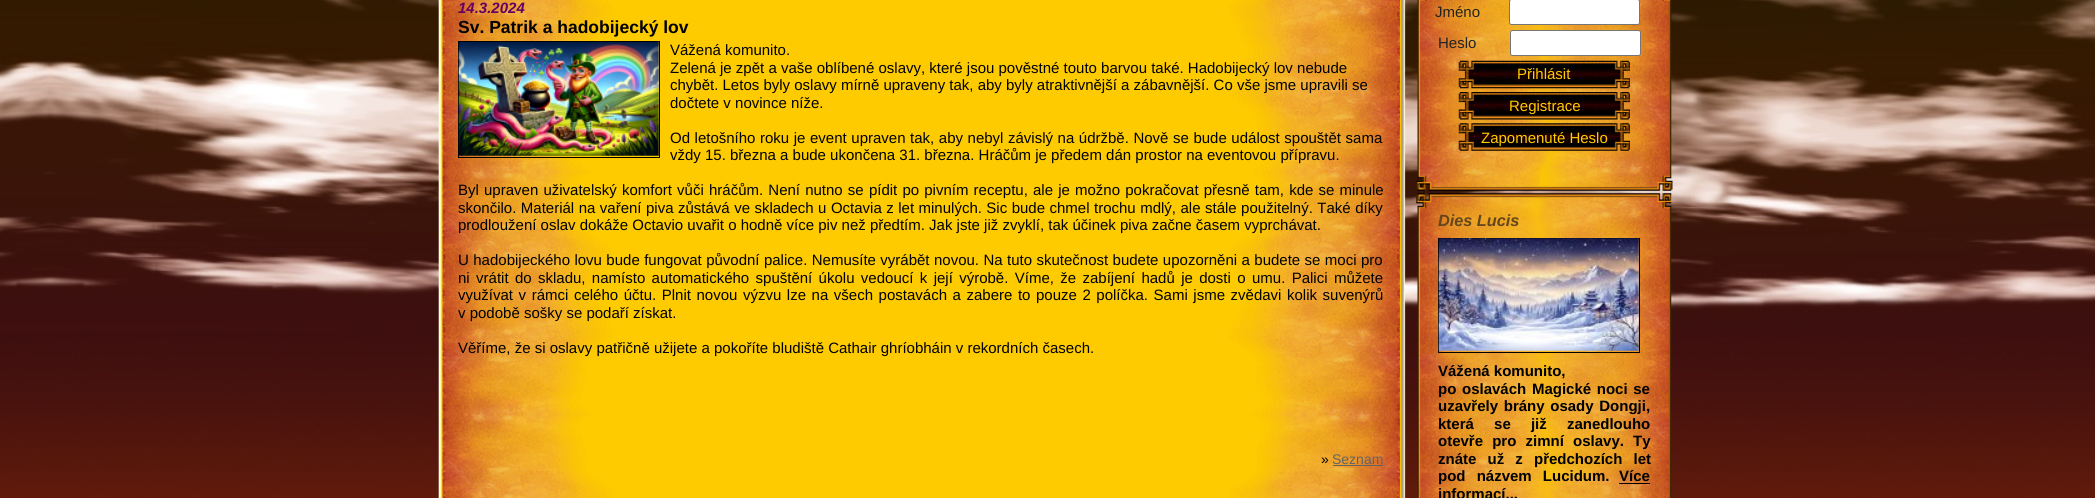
import math
import cairo

surface = cairo.ImageSurface(cairo.Format.RGB24, 2095, 498)
ctx = cairo.Context(surface)
options = cairo.FontOptions()
options.set_hint_metrics(cairo.HintMetrics.OFF)
options.set_hint_style(cairo.HintStyle.NONE)
ctx.set_font_options(options)
ctx.set_miter_limit(4)


def ink(r, g, b):
    ctx.set_source_rgb(r / 255, g / 255, b / 255)


def write(x, y, s, family, size, color, bold=False, italic=False):
    ctx.select_font_face(family, cairo.FontSlant.ITALIC if italic else cairo.FontSlant.NORMAL, cairo.FontWeight.BOLD if bold else cairo.FontWeight.NORMAL)
    ctx.set_font_size(size)
    ink(*color)
    ctx.move_to(x, y)
    ctx.show_text(s)


def write_spaced(x, y, s, letter, word):
    ctx.move_to(x, y)
    for ch in s:
        ctx.show_text(ch)
        ctx.rel_move_to(letter + word * (ch == ' '), 0)


def block(x, y, w, h, *color):
    ink(*color)
    ctx.rectangle(x, y, w, h)
    ctx.fill()


def round_path(x, y, w, h, r):
    ctx.new_sub_path()
    for i, (u, v) in enumerate([(x + w - r, y + h - r), (x + r, y + h - r), (x + r, y + r), (x + w - r, y + r)]):
        ctx.arc(u, v, r, i * math.pi / 2, (i + 1) * math.pi / 2)
    ctx.close_path()


def paste(path, x, y, w, h):
    ctx.save()
    ctx.set_source_surface(cairo.ImageSurface.create_from_png(path), x, y)
    ctx.rectangle(x, y, w, h)
    ctx.fill()
    ctx.restore()


s1 = dict(family="Liberation Sans", size=15, color=(100, 0, 100), bold=True, italic=True)
s2 = dict(family="Liberation Sans", size=17.5, color=(0, 0, 0), bold=True)
s3 = dict(family="Liberation Sans", size=15, color=(0, 0, 0))
s4 = dict(family="Liberation Sans", size=14, color=(0, 0, 0))
s5 = dict(family="Liberation Sans", size=14, color=(100, 100, 100))
s6 = dict(family="Liberation Sans", size=15, color=(34, 34, 34))
s7 = dict(family="Liberation Sans", size=15, color=(255, 204, 0))
s8 = dict(family="Liberation Sans", size=16.25, color=(100, 70, 30), bold=True, italic=True)
s9 = dict(family="Liberation Sans", size=15, color=(0, 0, 0), bold=True)

ink(255, 255, 255)
ctx.paint()
paste("pic1.png", 0, 0, 2095, 498)
paste("pic2.png", 438, 0, 968, 498)
write(458, 13, "14.3.2024", **s1)
write(458, 33, "Sv. Patrik a hadobijecký lov", **s2)
ctx.rectangle(458.5, 41.5, 201, 116)
ctx.set_line_width(1)
ctx.stroke()
paste("pic3.png", 458, 42, 201, 114)
write(670, 55, "Vážená komunito.", **s3)
write(670, 73, "Zelená je zpět a vaše oblíbené oslavy, které jsou pověstné touto barvou také. Hadobijecký lov nebude", **s3)
write(670, 90, "chybět. Letos byly oslavy mírně upraveny tak, aby byly atraktivnější a zábavnější. Co vše jsme upravili se", **s3)
write(670, 108, "dočtete v novince níže.", **s3)
write_spaced(670, 143, "Od letošního roku je event upraven tak, aby nebyl závislý na údržbě. Nově se bude událost spouštět sama", 0, 0.4)
write(670, 160, "vždy 15. března a bude ukončena 31. března. Hráčům je předem dán prostor na eventovou přípravu.", **s3)
write_spaced(458, 195, "Byl upraven uživatelský komfort vůči hráčům. Není nutno se pídit po pivním receptu, ale je možno pokračovat přesně tam, kde se minule", 0, 1)
write_spaced(458, 213, "skončilo. Materiál na vaření piva zůstává ve skladech u Octavia z let minulých. Sic bude chmel trochu mdlý, ale stále použitelný. Také díky", 0, 0.3)
write(458, 230, "prodloužení oslav dokáže Octavio uvařit o hodně více piv než předtím. Jak jste již zvyklí, tak účinek piva začne časem vyprchávat.", **s3)
write_spaced(458, 265, "U hadobijeckého lovu bude fungovat původní palice. Nemusíte vyrábět novou. Na tuto skutečnost budete upozorněni a budete se moci pro", 0, 0.25)
write_spaced(458, 283, "ni vrátit do skladu, namísto automatického spuštění úkolu vedoucí k její výrobě. Víme, že zabíjení hadů je dosti o umu. Palici můžete", 0, 2.2)
write_spaced(458, 300, "využívat v rámci celého účtu. Plnit novou výzvu lze na všech postavách a zabere to pouze 2 políčka. Sami jsme zvědavi kolik suvenýrů", 0, 1.4)
write(458, 318, "v podobě sošky se podaří získat.", **s3)
write(458, 353, "Věříme, že si oslavy patřičně užijete a pokoříte bludiště Cathair ghríobháin v rekordních časech.", **s3)
write(1321, 464, "»", **s4)
write(1332, 464, "Seznam", **s5)
block(1333, 465, 50, 1, 100, 100, 100)
paste("pic4.png", 1416, 0, 257, 191)
write(1435, 17, "Jméno", **s6)
ink(255, 255, 255)
round_path(1509.5, -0.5, 130, 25, 2)
ctx.fill_preserve()
ink(118, 118, 118)
ctx.stroke()
write(1438, 48, "Heslo", **s6)
ink(255, 255, 255)
round_path(1510.5, 30.5, 130, 25, 2)
ctx.fill_preserve()
ink(118, 118, 118)
ctx.stroke()
paste("pic5.png", 1458, 60, 172, 29)
write(1517, 79, "Přihlásit", **s7)
paste("pic6.png", 1458, 92, 172, 28)
write(1509, 111, "Registrace", **s7)
paste("pic7.png", 1458, 123, 172, 28)
write(1481, 143, "Zapomenuté Heslo", **s7)
paste("pic8.png", 1416, 193, 256, 305)
write(1438, 226, "Dies Lucis", **s8)
ctx.rectangle(1438.5, 238.5, 201, 114)
ink(0, 0, 0)
ctx.stroke()
paste("pic9.png", 1438, 238, 201, 113)
write(1438, 376, "Vážená komunito,", **s9)
write_spaced(1438, 394, "po oslavách Magické noci se", 0, 1.5)
write_spaced(1438, 411, "uzavřely brány osady Dongji,", 0, 1.5)
write_spaced(1438, 429, "která se již zanedlouho", 0, 16)
write_spaced(1438, 446, "otevře pro zimní oslavy. Ty", 0, 5)
write_spaced(1438, 464, "znáte už z předchozích let", 0, 7)
write_spaced(1438, 481, "pod názvem Lucidum.", 0, 7)
write(1619, 481, "Více", **s9)
block(1619, 483, 31, 1, 0, 0, 0)
write(1438, 499, "informací...", **s9)
surface.write_to_png("screenshot.png")
